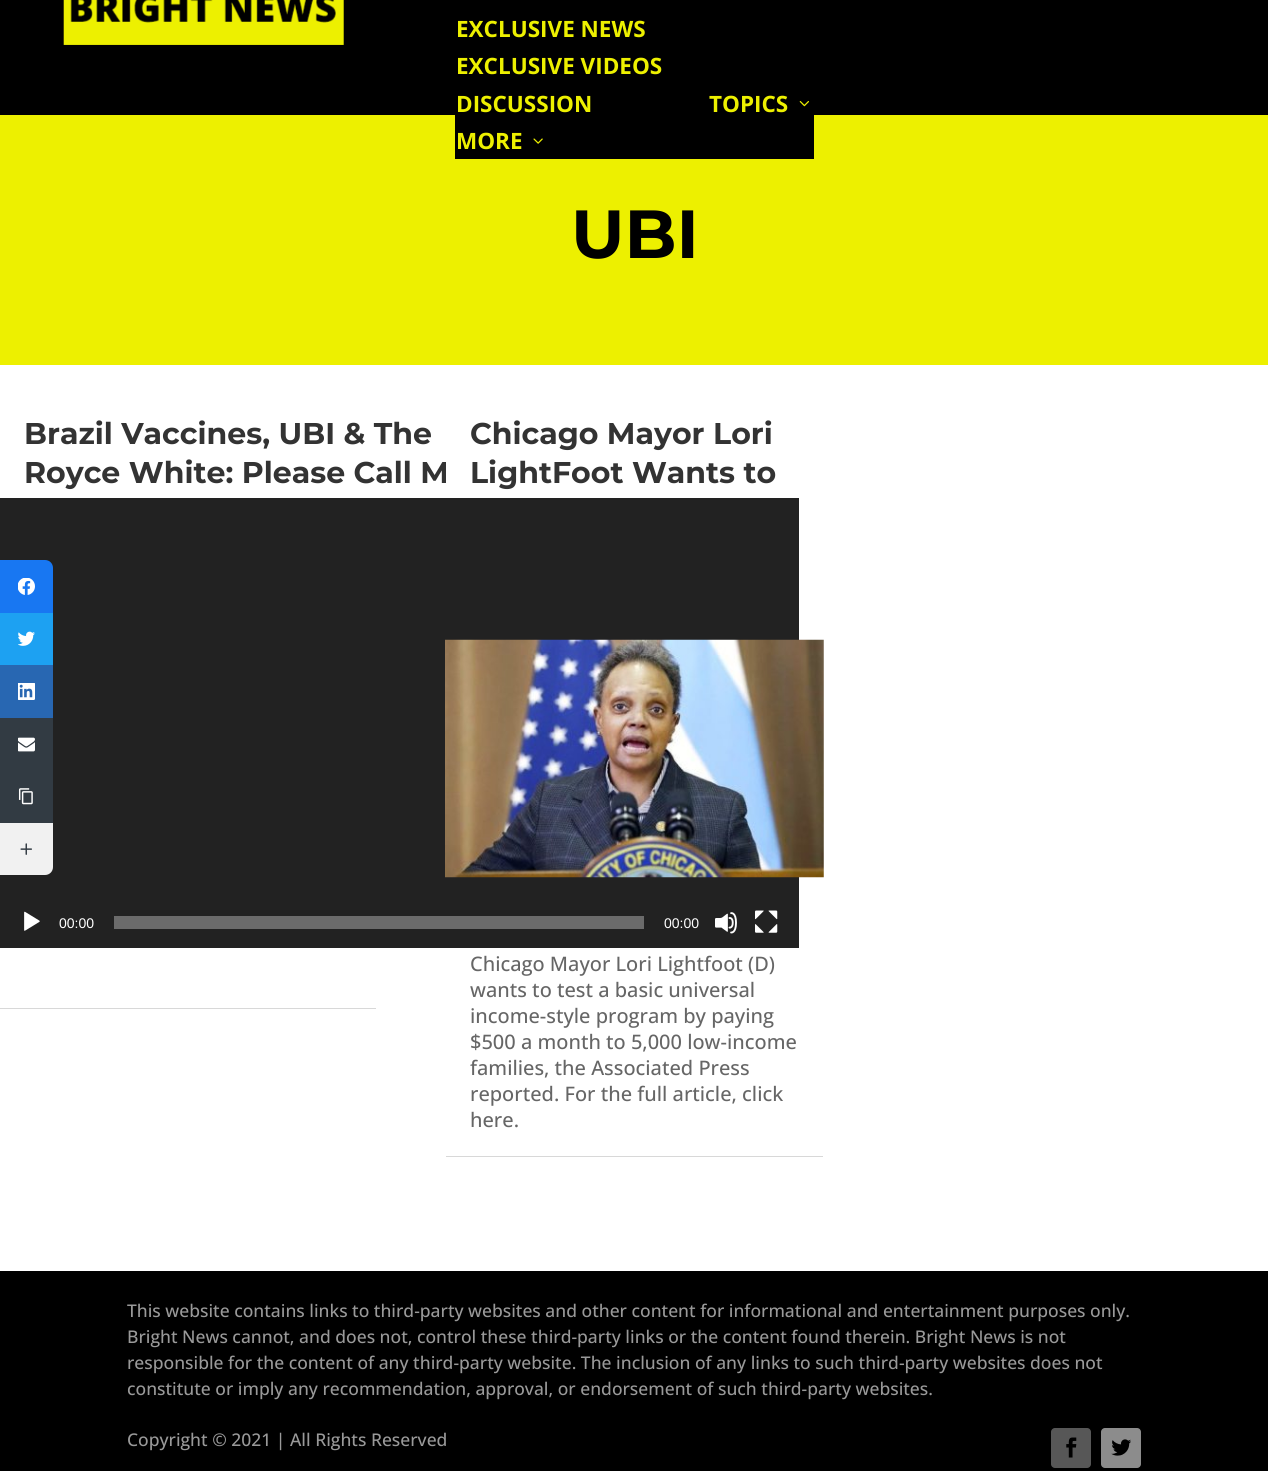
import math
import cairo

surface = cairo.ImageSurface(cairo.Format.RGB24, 1268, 1471)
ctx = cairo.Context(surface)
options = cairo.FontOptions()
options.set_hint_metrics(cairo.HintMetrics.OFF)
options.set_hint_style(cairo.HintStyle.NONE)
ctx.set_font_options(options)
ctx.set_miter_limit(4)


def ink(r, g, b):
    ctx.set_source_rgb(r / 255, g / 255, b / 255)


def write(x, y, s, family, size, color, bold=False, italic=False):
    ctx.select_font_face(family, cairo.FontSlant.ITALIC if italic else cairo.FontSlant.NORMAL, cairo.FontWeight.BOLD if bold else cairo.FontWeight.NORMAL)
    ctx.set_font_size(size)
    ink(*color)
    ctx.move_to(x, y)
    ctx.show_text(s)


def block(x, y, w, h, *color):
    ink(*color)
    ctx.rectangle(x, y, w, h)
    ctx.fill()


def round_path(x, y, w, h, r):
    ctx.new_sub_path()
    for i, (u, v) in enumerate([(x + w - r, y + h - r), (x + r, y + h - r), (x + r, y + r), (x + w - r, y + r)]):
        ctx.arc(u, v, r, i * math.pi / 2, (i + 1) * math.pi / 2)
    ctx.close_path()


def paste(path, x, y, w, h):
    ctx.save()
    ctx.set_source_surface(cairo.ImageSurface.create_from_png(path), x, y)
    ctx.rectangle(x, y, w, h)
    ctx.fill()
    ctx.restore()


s1 = dict(family="Open Sans", size=22.5, color=(237, 240, 0), bold=True)
s2 = dict(family="Montserrat", size=68, color=(0, 0, 0), bold=True)
s3 = dict(family="Montserrat", size=30, color=(51, 51, 51), bold=True)
s4 = dict(family="Liberation Sans", size=14, color=(255, 255, 255))
s5 = dict(family="Open Sans Medium", size=20, color=(102, 102, 102))
s6 = dict(family="Open Sans Medium", size=17.5, color=(153, 153, 153))

ink(255, 255, 255)
ctx.paint()
block(0, 0, 1268, 115, 0, 0, 0)
paste("pic1.png", 63, 0, 281, 45)
block(0, 115, 1268, 250, 237, 240, 0)
block(455, 115, 359, 44, 0, 0, 0)
write(456, 37, "EXCLUSIVE NEWS", **s1)
write(456, 74, "EXCLUSIVE VIDEOS", **s1)
write(456, 112, "DISCUSSION", **s1)
write(709, 112, "TOPICS", **s1)
paste("pic2.png", 799, 101, 10, 6)
write(456, 149, "MORE", **s1)
paste("pic3.png", 533, 138, 10, 6)
write(571, 258, "UBI", **s2)
block(0, 1008, 376, 1, 216, 216, 216)
write(24, 444, "Brazil Vaccines, UBI & The", **s3)
write(24, 483, "Royce White: Please Call M", **s3)
block(0, 498, 799, 450, 34, 34, 34)
paste("pic4.png", 24, 911, 16, 20)
write(59, 928, "00:00", **s4)
block(114, 916, 530, 13, 107, 107, 107)
write(664, 928, "00:00", **s4)
paste("pic5.png", 715, 912, 22, 22)
paste("pic6.png", 755, 910, 23, 23)
block(446, 462, 1, 21, 255, 255, 255)
block(446, 1156, 377, 1, 216, 216, 216)
write(470, 444, "Chicago Mayor Lori", **s3)
write(470, 483, "LightFoot Wants to", **s3)
paste("pic7.png", 445, 639, 379, 239)
write(470, 971, "Chicago Mayor Lori Lightfoot (D)", **s5)
write(470, 997, "wants to test a basic universal", **s5)
write(470, 1023, "income-style program by paying", **s5)
write(470, 1049, "$500 a month to 5,000 low-income", **s5)
write(470, 1075, "families, the Associated Press", **s5)
write(470, 1101, "reported. For the full article, click", **s5)
write(470, 1127, "here.", **s5)
block(0, 1271, 1268, 200, 0, 0, 0)
write(127, 1317, "This website contains links to third-party websites and other content for informational and entertainment purposes only.", **s6)
write(127, 1343, "Bright News cannot, and does not, control these third-party links or the content found therein. Bright News is not", **s6)
write(127, 1369, "responsible for the content of any third-party website. The inclusion of any links to such third-party websites does not", **s6)
write(127, 1395, "constitute or imply any recommendation, approval, or endorsement of such third-party websites.", **s6)
write(127, 1446, "Copyright © 2021 | All Rights Reserved", **s6)
ink(87, 87, 87)
round_path(1051, 1428, 40, 40, 4)
ctx.fill()
paste("pic8.png", 1066, 1437, 11, 21)
ink(140, 140, 140)
round_path(1101, 1428, 40, 40, 4)
ctx.fill()
paste("pic9.png", 1111, 1439, 20, 17)
ink(24, 119, 242)
ctx.new_path()
ctx.move_to(0, 560)
ctx.line_to(45, 560)
ctx.curve_to(49.5, 560, 53, 563.5, 53, 568)
ctx.line_to(53, 613)
ctx.line_to(0, 613)
ctx.close_path()
ctx.fill()
paste("pic10.png", 18, 578, 17, 17)
block(0, 613, 53, 52, 29, 161, 242)
paste("pic11.png", 18, 631, 17, 15)
block(0, 665, 53, 53, 40, 103, 178)
paste("pic12.png", 18, 683, 17, 17)
block(0, 718, 53, 105, 50, 59, 67)
paste("pic13.png", 18, 737, 17, 15)
paste("pic14.png", 18, 788, 15, 17)
ink(241, 241, 241)
ctx.new_path()
ctx.move_to(0, 823)
ctx.line_to(53, 823)
ctx.line_to(53, 867)
ctx.curve_to(53, 871.5, 49.5, 875, 45, 875)
ctx.line_to(0, 875)
ctx.close_path()
ctx.fill()
paste("pic15.png", 20, 843, 12, 12)
surface.write_to_png("screenshot.png")
